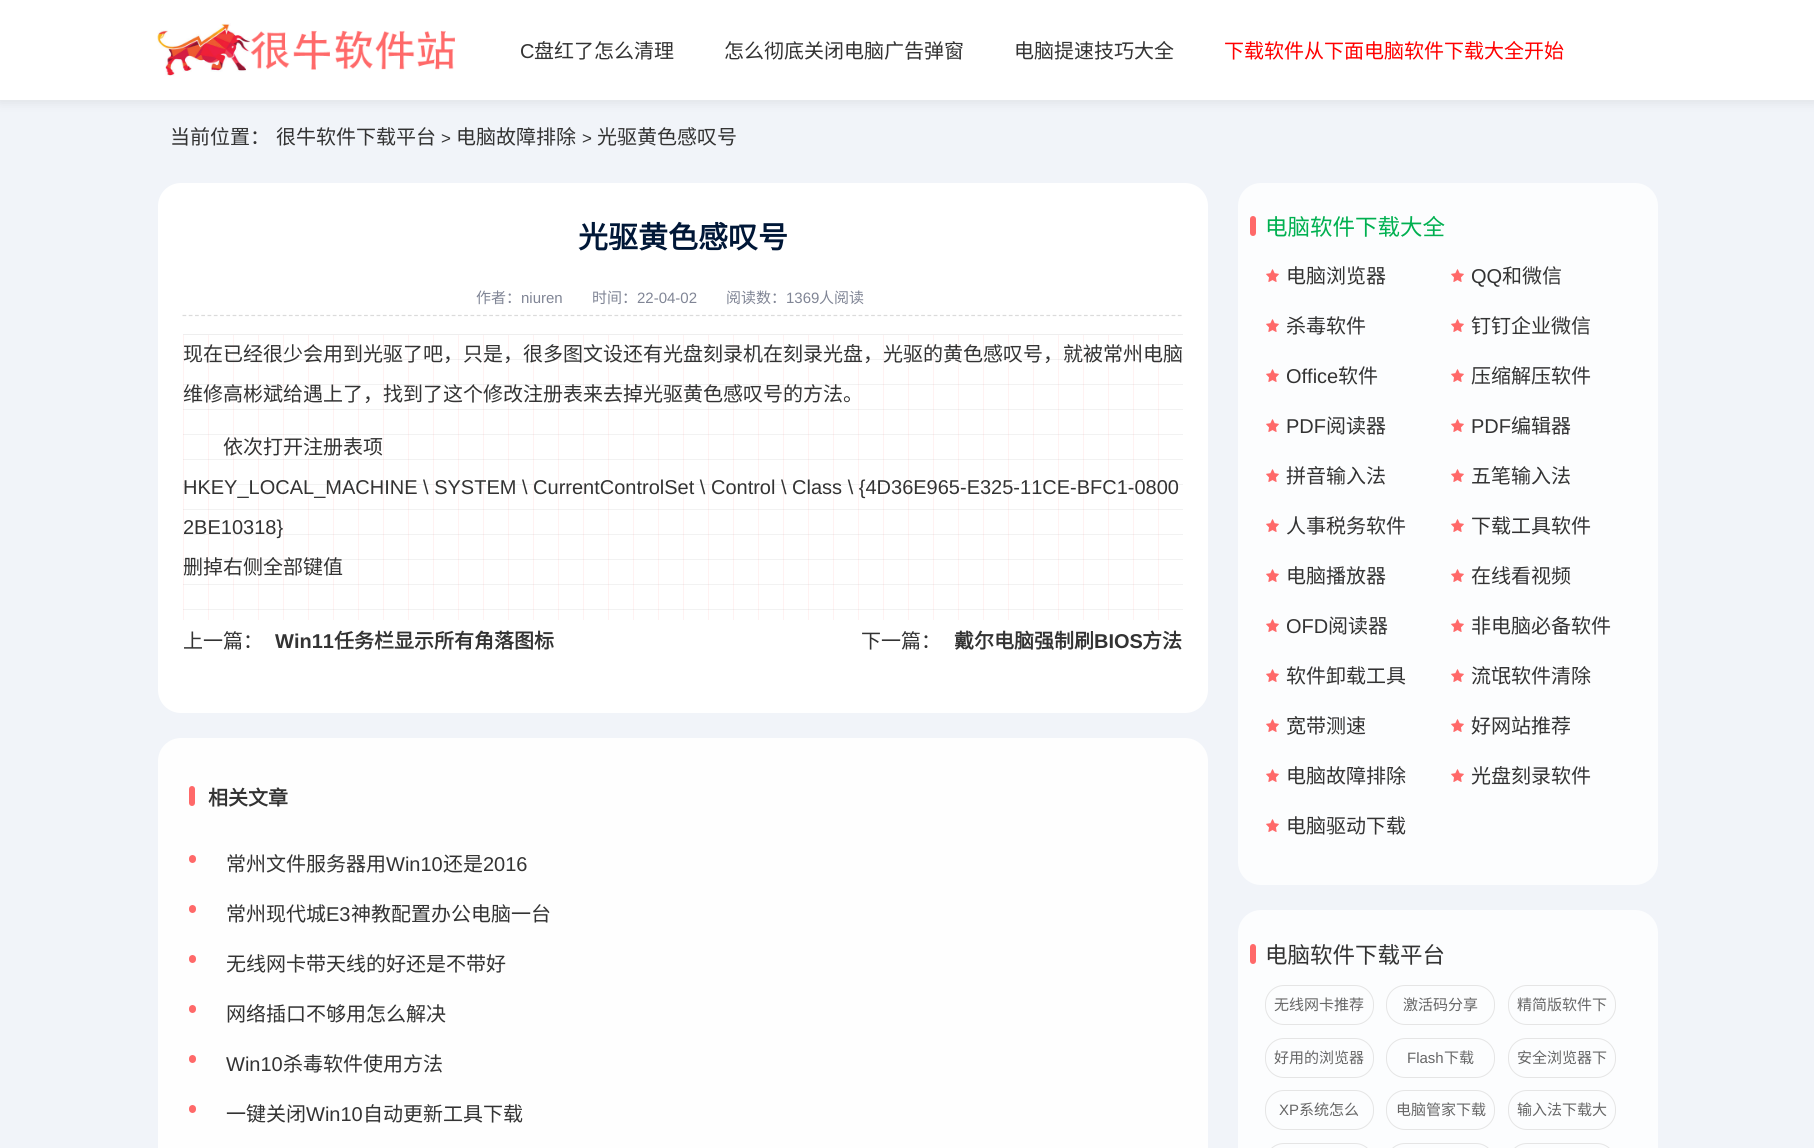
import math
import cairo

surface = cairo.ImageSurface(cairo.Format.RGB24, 1814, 1148)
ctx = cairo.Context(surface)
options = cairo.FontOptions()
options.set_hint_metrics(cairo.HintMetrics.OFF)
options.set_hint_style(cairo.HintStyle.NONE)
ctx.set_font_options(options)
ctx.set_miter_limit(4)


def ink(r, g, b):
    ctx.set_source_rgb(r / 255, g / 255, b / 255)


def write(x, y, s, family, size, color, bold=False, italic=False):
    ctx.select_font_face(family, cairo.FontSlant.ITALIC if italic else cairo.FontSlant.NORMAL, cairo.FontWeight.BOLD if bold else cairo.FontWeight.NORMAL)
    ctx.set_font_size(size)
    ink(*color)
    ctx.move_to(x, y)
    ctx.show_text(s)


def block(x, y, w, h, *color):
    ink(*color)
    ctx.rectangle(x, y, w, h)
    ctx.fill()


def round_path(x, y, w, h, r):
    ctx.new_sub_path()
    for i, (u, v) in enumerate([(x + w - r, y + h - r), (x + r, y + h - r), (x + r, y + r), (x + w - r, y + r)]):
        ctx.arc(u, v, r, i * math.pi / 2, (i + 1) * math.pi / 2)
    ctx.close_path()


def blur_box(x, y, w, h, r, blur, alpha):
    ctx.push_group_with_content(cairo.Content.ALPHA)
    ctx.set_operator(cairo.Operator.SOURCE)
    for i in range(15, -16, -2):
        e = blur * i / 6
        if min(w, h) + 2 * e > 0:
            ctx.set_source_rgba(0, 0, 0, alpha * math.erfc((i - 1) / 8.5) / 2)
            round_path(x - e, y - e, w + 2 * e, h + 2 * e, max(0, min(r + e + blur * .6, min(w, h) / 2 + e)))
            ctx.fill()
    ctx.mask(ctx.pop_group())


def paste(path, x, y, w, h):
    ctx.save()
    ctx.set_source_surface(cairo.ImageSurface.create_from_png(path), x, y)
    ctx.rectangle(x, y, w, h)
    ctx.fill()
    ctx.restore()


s1 = dict(family="Liberation Sans", size=20, color=(51, 51, 51))
s2 = dict(family="Noto Sans CJK SC", size=20, color=(51, 51, 51))
s3 = dict(family="Noto Sans CJK SC", size=20, color=(255, 0, 0))
s4 = dict(family="Liberation Sans", size=17, color=(51, 51, 51))
s5 = dict(family="Noto Sans CJK SC", size=30, color=(0, 23, 55), bold=True)
s6 = dict(family="Noto Sans CJK SC", size=15, color=(128, 133, 149))
s7 = dict(family="Liberation Sans", size=15, color=(128, 133, 149))
s8 = dict(family="Liberation Sans", size=20, color=(51, 51, 51), bold=True)
s9 = dict(family="Noto Sans CJK SC", size=20, color=(51, 51, 51), bold=True)
s10 = dict(family="Noto Sans CJK SC", size=22.5, color=(0, 176, 80))
s11 = dict(family="Noto Sans CJK SC", size=22.5, color=(51, 51, 51))
s12 = dict(family="Noto Sans CJK SC", size=15, color=(102, 102, 102))
s13 = dict(family="Liberation Sans", size=15, color=(102, 102, 102))

ink(241, 244, 249)
ctx.paint()
ink(0, 0, 0)
blur_box(0, 1, 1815, 100, 0, 6, 0.1)
block(0, 0, 1814, 100, 255, 255, 255)
paste("pic1.png", 157, 23, 298, 53)
write(520, 58, "C", **s1)
write(534, 58, "盘红了怎么清理", **s2)
write(724, 58, "怎么彻底关闭电脑广告弹窗", **s2)
write(1014, 58, "电脑提速技巧大全", **s2)
write(1224, 58, "下载软件从下面电脑软件下载大全开始", **s3)
write(170, 144, "当前位置：", **s2)
write(276, 144, "很牛软件下载平台", **s2)
write(441, 144, ">", **s4)
write(456, 144, "电脑故障排除", **s2)
write(582, 144, ">", **s4)
write(597, 144, "光驱黄色感叹号", **s2)
ink(255, 255, 255)
round_path(158, 183, 1050, 530, 23)
ctx.fill()
write(578, 248, "光驱黄色感叹号", **s5)
ctx.new_path()
ctx.move_to(182.5, 315.5)
ctx.line_to(1182.5, 315.5)
ink(219, 219, 219)
ctx.set_line_width(1.2)
ctx.set_dash([3.75, 2.51])
ctx.stroke()
write(476, 303, "作者：", **s6)
write(521, 303, "niuren", **s7)
write(592, 303, "时间：", **s6)
write(637, 303, "22-04-02", **s7)
write(726, 303, "阅读数：", **s6)
write(786, 303, "1369", **s7)
write(819, 303, "人阅读", **s6)
block(183, 359, 1000, 1, 242, 242, 242)
block(183, 384, 1000, 1, 242, 242, 242)
block(183, 409, 1000, 1, 242, 242, 242)
block(183, 434, 1000, 1, 242, 242, 242)
block(183, 459, 1000, 1, 242, 242, 242)
block(183, 484, 1000, 1, 242, 242, 242)
block(183, 509, 1000, 1, 242, 242, 242)
block(183, 534, 1000, 1, 242, 242, 242)
block(183, 559, 1000, 1, 242, 242, 242)
block(183, 584, 1000, 1, 242, 242, 242)
block(183, 609, 1000, 1, 242, 242, 242)
paste("pic2.png", 183, 335, 976, 285)
block(183, 334, 1000, 1, 238, 238, 238)
write(183, 361, "现在已经很少会用到光驱了吧，只是，很多图文设还有光盘刻录机在刻录光盘，光驱的黄色感叹号，就被常州电脑", **s2)
write(183, 401, "维修高彬斌给遇上了，找到了这个修改注册表来去掉光驱黄色感叹号的方法。", **s2)
write(223, 454, "依次打开注册表项", **s2)
write(183, 494, "HKEY_LOCAL_MACHINE \\ SYSTEM \\ CurrentControlSet \\ Control \\ Class \\ {4D36E965-E325-11CE-BFC1-0800", **s1)
write(183, 534, "2BE10318}", **s1)
write(183, 574, "删掉右侧全部键值", **s2)
write(183, 648, "上一篇：", **s2)
write(275, 648, "Win11", **s8)
write(334, 648, "任务栏显示所有角落图标", **s9)
write(861, 648, "下一篇：", **s2)
write(954, 648, "戴尔电脑强制刷", **s9)
write(1094, 648, "BIOS", **s8)
write(1142, 648, "方法", **s9)
ink(254, 254, 254)
round_path(158, 738, 1050, 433, 23)
ctx.fill()
ink(255, 105, 105)
round_path(189, 786, 6, 20, 3)
ctx.fill()
write(208, 805, "相关文章", **s9)
ink(255, 105, 105)
round_path(189, 855, 7, 8, 3.5)
ctx.fill()
write(226, 871, "常州文件服务器用", **s2)
write(386, 871, "Win10", **s1)
write(443, 871, "还是", **s2)
write(483, 871, "2016", **s1)
ink(255, 105, 105)
round_path(189, 905, 7, 8, 3.5)
ctx.fill()
write(226, 921, "常州现代城", **s2)
write(326, 921, "E3", **s1)
write(351, 921, "神教配置办公电脑一台", **s2)
ink(255, 105, 105)
round_path(189, 955, 7, 8, 3.5)
ctx.fill()
write(226, 971, "无线网卡带天线的好还是不带好", **s2)
ink(255, 105, 105)
round_path(189, 1005, 7, 8, 3.5)
ctx.fill()
write(226, 1021, "网络插口不够用怎么解决", **s2)
ink(255, 105, 105)
round_path(189, 1055, 7, 8, 3.5)
ctx.fill()
write(226, 1071, "Win10", **s1)
write(283, 1071, "杀毒软件使用方法", **s2)
ink(255, 105, 105)
round_path(189, 1105, 7, 8, 3.5)
ctx.fill()
write(226, 1121, "一键关闭", **s2)
write(306, 1121, "Win10", **s1)
write(363, 1121, "自动更新工具下载", **s2)
ink(252, 253, 254)
round_path(1238, 183, 420, 702, 23)
ctx.fill()
ink(255, 105, 105)
round_path(1250, 216, 6, 20, 3)
ctx.fill()
write(1265, 235, "电脑软件下载大全", **s10)
paste("pic3.png", 1266, 269, 13, 13)
write(1286, 283, "电脑浏览器", **s2)
paste("pic3.png", 1451, 269, 13, 13)
write(1471, 283, "QQ", **s1)
write(1502, 283, "和微信", **s2)
paste("pic3.png", 1266, 319, 13, 13)
write(1286, 333, "杀毒软件", **s2)
paste("pic3.png", 1451, 319, 13, 13)
write(1471, 333, "钉钉企业微信", **s2)
paste("pic3.png", 1266, 369, 13, 13)
write(1286, 383, "Office", **s1)
write(1338, 383, "软件", **s2)
paste("pic3.png", 1451, 369, 13, 13)
write(1471, 383, "压缩解压软件", **s2)
paste("pic3.png", 1266, 419, 13, 13)
write(1286, 433, "PDF", **s1)
write(1326, 433, "阅读器", **s2)
paste("pic3.png", 1451, 419, 13, 13)
write(1471, 433, "PDF", **s1)
write(1511, 433, "编辑器", **s2)
paste("pic3.png", 1266, 469, 13, 13)
write(1286, 483, "拼音输入法", **s2)
paste("pic3.png", 1451, 469, 13, 13)
write(1471, 483, "五笔输入法", **s2)
paste("pic3.png", 1266, 519, 13, 13)
write(1286, 533, "人事税务软件", **s2)
paste("pic3.png", 1451, 519, 13, 13)
write(1471, 533, "下载工具软件", **s2)
paste("pic3.png", 1266, 569, 13, 13)
write(1286, 583, "电脑播放器", **s2)
paste("pic3.png", 1451, 569, 13, 13)
write(1471, 583, "在线看视频", **s2)
paste("pic3.png", 1266, 619, 13, 13)
write(1286, 633, "OFD", **s1)
write(1328, 633, "阅读器", **s2)
paste("pic3.png", 1451, 619, 13, 13)
write(1471, 633, "非电脑必备软件", **s2)
paste("pic3.png", 1266, 669, 13, 13)
write(1286, 683, "软件卸载工具", **s2)
paste("pic3.png", 1451, 669, 13, 13)
write(1471, 683, "流氓软件清除", **s2)
paste("pic3.png", 1266, 719, 13, 13)
write(1286, 733, "宽带测速", **s2)
paste("pic3.png", 1451, 719, 13, 13)
write(1471, 733, "好网站推荐", **s2)
paste("pic3.png", 1266, 769, 13, 13)
write(1286, 783, "电脑故障排除", **s2)
paste("pic3.png", 1451, 769, 13, 13)
write(1471, 783, "光盘刻录软件", **s2)
paste("pic3.png", 1266, 819, 13, 13)
write(1286, 833, "电脑驱动下载", **s2)
ink(252, 253, 254)
round_path(1238, 910, 420, 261, 23)
ctx.fill()
ink(255, 105, 105)
round_path(1250, 944, 6, 20, 3)
ctx.fill()
write(1265, 963, "电脑软件下载平台", **s11)
round_path(1265.5, 985.5, 108, 39, 18.5)
ink(229, 229, 229)
ctx.set_line_width(1)
ctx.set_dash([])
ctx.stroke()
write(1274, 1010, "无线网卡推荐", **s12)
round_path(1386.5, 985.5, 108, 39, 18.5)
ink(229, 229, 229)
ctx.stroke()
write(1403, 1010, "激活码分享", **s12)
round_path(1508.5, 985.5, 107, 39, 18.5)
ink(229, 229, 229)
ctx.stroke()
write(1517, 1010, "精简版软件下", **s12)
round_path(1265.5, 1038.5, 108, 39, 18.5)
ink(229, 229, 229)
ctx.stroke()
write(1274, 1063, "好用的浏览器", **s12)
round_path(1386.5, 1038.5, 108, 39, 18.5)
ink(229, 229, 229)
ctx.stroke()
write(1407, 1063, "Flash", **s13)
write(1444, 1063, "下载", **s12)
round_path(1508.5, 1038.5, 107, 39, 18.5)
ink(229, 229, 229)
ctx.stroke()
write(1517, 1063, "安全浏览器下", **s12)
round_path(1265.5, 1090.5, 108, 39, 18.5)
ink(229, 229, 229)
ctx.stroke()
write(1279, 1115, "XP", **s13)
write(1299, 1115, "系统怎么", **s12)
round_path(1386.5, 1090.5, 108, 39, 18.5)
ink(229, 229, 229)
ctx.stroke()
write(1396, 1115, "电脑管家下载", **s12)
round_path(1508.5, 1090.5, 107, 39, 18.5)
ink(229, 229, 229)
ctx.stroke()
write(1517, 1115, "输入法下载大", **s12)
round_path(1265.5, 1143.5, 108, 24, 18.5)
ink(229, 229, 229)
ctx.stroke()
round_path(1386.5, 1143.5, 108, 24, 18.5)
ctx.stroke()
round_path(1508.5, 1143.5, 107, 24, 18.5)
ctx.stroke()
surface.write_to_png("screenshot.png")
